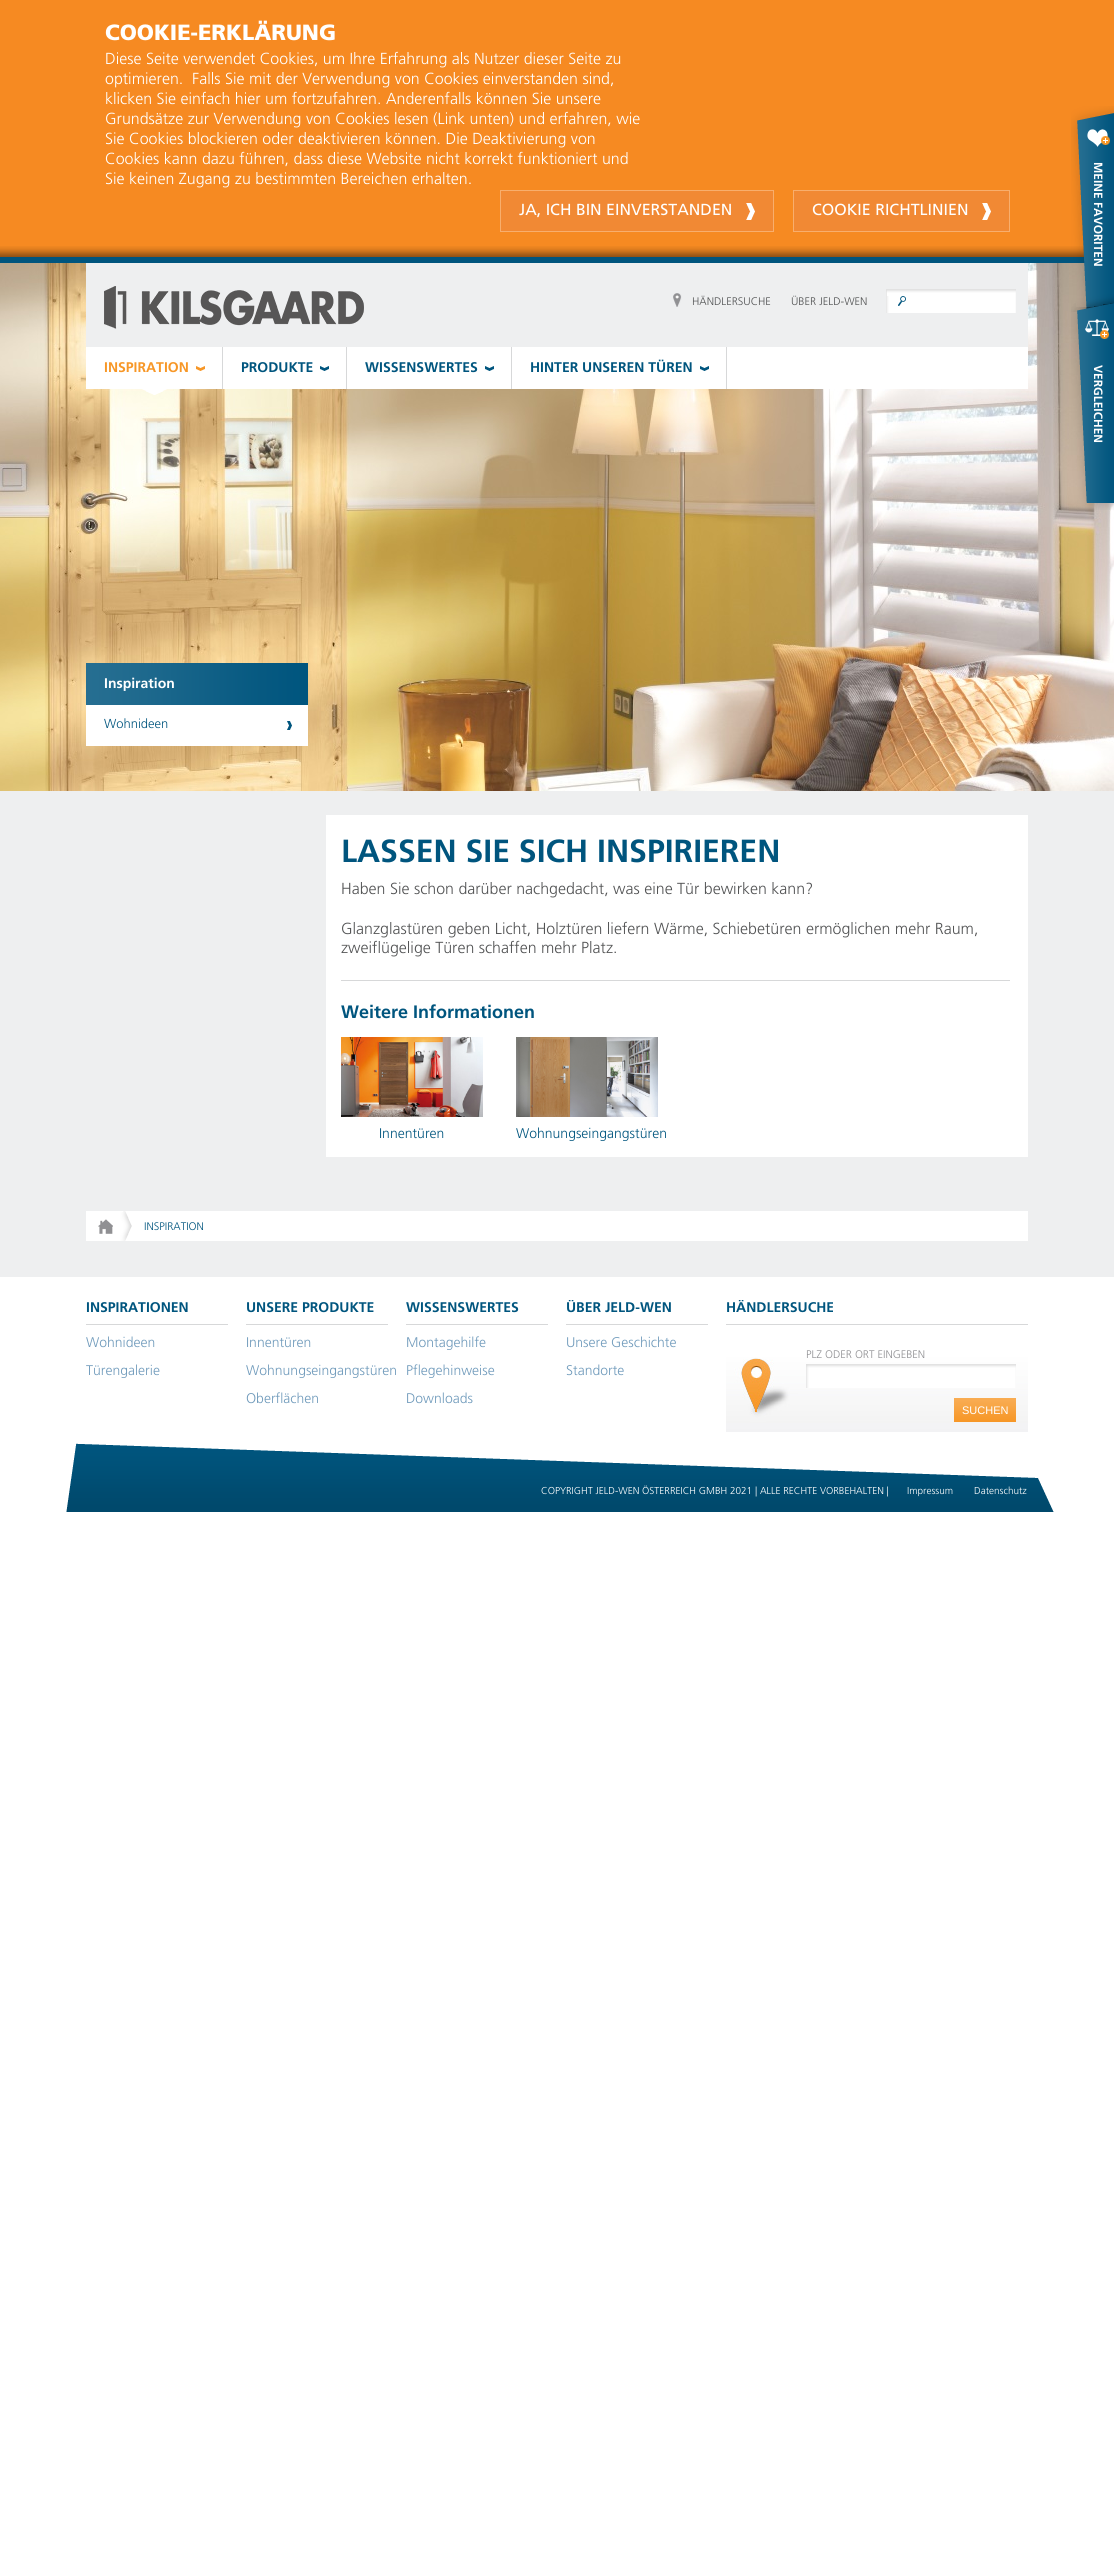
import math
import cairo

surface = cairo.ImageSurface(cairo.Format.RGB24, 1114, 2557)
ctx = cairo.Context(surface)
options = cairo.FontOptions()
options.set_hint_metrics(cairo.HintMetrics.OFF)
options.set_hint_style(cairo.HintStyle.NONE)
ctx.set_font_options(options)
ctx.set_miter_limit(4)


def ink(r, g, b):
    ctx.set_source_rgb(r / 255, g / 255, b / 255)


def write(x, y, s, family, size, color, bold=False, italic=False):
    ctx.select_font_face(family, cairo.FontSlant.ITALIC if italic else cairo.FontSlant.NORMAL, cairo.FontWeight.BOLD if bold else cairo.FontWeight.NORMAL)
    ctx.set_font_size(size)
    ink(*color)
    ctx.move_to(x, y)
    ctx.show_text(s)


def block(x, y, w, h, *color):
    ink(*color)
    ctx.rectangle(x, y, w, h)
    ctx.fill()


def paste(path, x, y, w, h):
    ctx.save()
    ctx.set_source_surface(cairo.ImageSurface.create_from_png(path), x, y)
    ctx.rectangle(x, y, w, h)
    ctx.fill()
    ctx.restore()


s1 = dict(family="Frutiger Black", size=22, color=(255, 255, 255))
s2 = dict(family="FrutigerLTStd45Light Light", size=16, color=(255, 255, 255))
s3 = dict(family="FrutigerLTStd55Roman", size=16, color=(255, 255, 255))
s4 = dict(family="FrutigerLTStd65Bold", size=12, color=(255, 255, 255), bold=True)
s5 = dict(family="FrutigerLTStd45Light Light", size=11, color=(82, 83, 84))
s6 = dict(family="FrutigerLTStd65Bold", size=14, color=(247, 151, 39), bold=True)
s7 = dict(family="FrutigerLTStd65Bold", size=14, color=(0, 85, 126), bold=True)
s8 = dict(family="FrutigerLTStd65Bold", size=14, color=(255, 255, 255), bold=True)
s9 = dict(family="FrutigerLTStd45Light Light", size=13, color=(0, 85, 126))
s10 = dict(family="FrutigerLTStd65Bold", size=32, color=(0, 85, 126), bold=True)
s11 = dict(family="FrutigerLTStd45Light Light", size=16, color=(82, 83, 84))
s12 = dict(family="FrutigerLTStd65Bold", size=18, color=(0, 85, 126), bold=True)
s13 = dict(family="FrutigerLTStd45Light Light", size=14, color=(0, 85, 126))
s14 = dict(family="FrutigerLTStd45Light Light", size=11, color=(0, 85, 126))
s15 = dict(family="FrutigerLTStd45Light Light", size=14, color=(111, 154, 187))
s16 = dict(family="FrutigerLTStd45Light Light", size=11, color=(144, 144, 147))
s17 = dict(family="Liberation Sans", size=11, color=(255, 255, 255))
s18 = dict(family="FrutigerLTStd45Light Light", size=10, color=(255, 255, 255))

ink(255, 255, 255)
ctx.paint()
block(0, 0, 1114, 257, 246, 138, 34)
paste("pic1.png", 0, 246, 1084, 11)
write(105, 40, "COOKIE-ERKLÄRUNG", **s1)
write(105, 64, "Diese Seite verwendet Cookies, um Ihre Erfahrung als Nutzer dieser Seite zu", **s2)
write(105, 84, "optimieren.  Falls Sie mit der Verwendung von Cookies einverstanden sind,", **s2)
write(105, 104, "klicken Sie einfach hier um fortzufahren. Anderenfalls können Sie unsere", **s2)
write(105, 124, "Grundsätze zur Verwendung von Cookies lesen (Link unten) und erfahren, wie", **s2)
write(105, 144, "Sie Cookies blockieren oder deaktivieren können. Die Deaktivierung von", **s2)
write(105, 164, "Cookies kann dazu führen, dass diese Website nicht korrekt funktioniert und", **s2)
write(105, 184, "Sie keinen Zugang zu bestimmten Bereichen erhalten.", **s2)
ink(241, 137, 52)
ctx.rectangle(500.5, 190.5, 273, 41)
ctx.fill_preserve()
ink(248, 174, 109)
ctx.set_line_width(1)
ctx.stroke()
write(519, 215, "JA, ICH BIN EINVERSTANDEN", **s3)
paste("pic2.png", 746, 203, 9, 17)
ink(241, 137, 52)
ctx.rectangle(793.5, 190.5, 216, 41)
ctx.fill_preserve()
ink(248, 174, 109)
ctx.stroke()
write(812, 215, "COOKIE RICHTLINIEN", **s3)
paste("pic2.png", 982, 203, 9, 17)
block(0, 791, 1114, 486, 238, 239, 240)
paste("pic3.png", 0, 257, 1085, 6)
paste("pic6.png", 0, 263, 1114, 528)
paste("pic4.png", 1071, 106, 43, 206)
ctx.save()
ctx.translate(1094, 162)
ctx.rotate(90 * math.pi / 180)
write(0, 0, "MEINE FAVORITEN", **s4)
ctx.restore()
paste("pic5.png", 1071, 303, 43, 207)
ctx.save()
ctx.translate(1094, 365)
ctx.rotate(90 * math.pi / 180)
write(0, 0, "VERGLEICHEN", **s4)
ctx.restore()
block(86, 263, 942, 84, 238, 239, 240)
paste("pic7.png", 104, 286, 260, 43)
paste("pic8.png", 673, 293, 9, 14)
write(692, 305, "HÄNDLERSUCHE", **s5)
write(791, 305, "ÜBER JELD-WEN", **s5)
paste("pic9.png", 886, 289, 20, 24)
paste("pic10.png", 906, 289, 110, 24)
block(86, 347, 942, 42, 255, 255, 255)
block(222, 347, 1, 42, 215, 216, 217)
paste("pic11.png", 196, 366, 9, 5)
write(104, 372, "INSPIRATION", **s6)
paste("pic12.png", 142, 389, 25, 6)
block(346, 347, 1, 42, 215, 216, 217)
paste("pic13.png", 320, 366, 9, 5)
write(241, 372, "PRODUKTE", **s7)
block(511, 347, 1, 42, 215, 216, 217)
paste("pic13.png", 485, 366, 9, 5)
write(365, 372, "WISSENSWERTES", **s7)
block(726, 347, 1, 42, 215, 216, 217)
paste("pic13.png", 700, 366, 9, 5)
write(530, 372, "HINTER UNSEREN TÜREN", **s7)
paste("pic14.png", 86, 663, 222, 42)
write(104, 688, "Inspiration", **s8)
block(86, 705, 222, 41, 255, 255, 255)
paste("pic15.png", 287, 721, 5, 9)
write(104, 728, "Wohnideen", **s9)
block(326, 815, 702, 342, 255, 255, 255)
write(341, 862, "LASSEN SIE SICH INSPIRIEREN", **s10)
write(341, 894, "Haben Sie schon darüber nachgedacht, was eine Tür bewirken kann?", **s11)
write(341, 934, "Glanzglastüren geben Licht, Holztüren liefern Wärme, Schiebetüren ermöglichen mehr Raum,", **s11)
write(341, 953, "zweiflügelige Türen schaffen mehr Platz.", **s11)
block(341, 980, 669, 1, 215, 216, 217)
write(341, 1018, "Weitere Informationen", **s12)
paste("pic16.png", 341, 1037, 142, 80)
write(379, 1138, "Innentüren", **s13)
paste("pic17.png", 516, 1037, 142, 80)
write(516, 1138, "Wohnungseingangstüren", **s13)
block(86, 1211, 942, 30, 255, 255, 255)
paste("pic18.png", 98, 1212, 25, 29)
paste("pic19.png", 123, 1211, 9, 30)
write(144, 1230, "INSPIRATION", **s14)
block(86, 1324, 142, 1, 215, 216, 217)
write(86, 1312, "INSPIRATIONEN", **s7)
write(86, 1347, "Wohnideen", **s15)
write(86, 1375, "Türengalerie", **s15)
block(246, 1324, 142, 1, 215, 216, 217)
write(246, 1312, "UNSERE PRODUKTE", **s7)
write(246, 1347, "Innentüren", **s15)
write(246, 1375, "Wohnungseingangstüren", **s15)
write(246, 1403, "Oberflächen", **s15)
block(406, 1324, 142, 1, 215, 216, 217)
write(406, 1312, "WISSENSWERTES", **s7)
write(406, 1347, "Montagehilfe", **s15)
write(406, 1375, "Pflegehinweise", **s15)
write(406, 1403, "Downloads", **s15)
block(566, 1324, 142, 1, 215, 216, 217)
ctx.save()
ctx.rectangle(86, 1300, 942, 143)
ctx.clip()
write(566, 1312, "ÜBER JELD-WEN", **s7)
ctx.restore()
write(566, 1347, "Unsere Geschichte", **s15)
write(566, 1375, "Standorte", **s15)
block(726, 1324, 302, 1, 215, 216, 217)
ctx.save()
ctx.rectangle(86, 1300, 942, 143)
ctx.clip()
write(726, 1312, "HÄNDLERSUCHE", **s7)
ctx.restore()
paste("pic20.png", 726, 1357, 302, 75)
write(806, 1358, "PLZ ODER ORT EINGEBEN", **s16)
paste("pic21.png", 806, 1364, 210, 24)
paste("pic22.png", 954, 1398, 62, 24)
write(962, 1414, "SUCHEN", **s17)
paste("pic23.png", 66, 1443, 988, 69)
write(541, 1494, "COPYRIGHT JELD-WEN ÖSTERREICH GMBH 2021 | ALLE RECHTE VORBEHALTEN |", **s18)
write(907, 1494, "Impressum", **s18)
write(974, 1494, "Datenschutz", **s18)
surface.write_to_png("screenshot.png")
